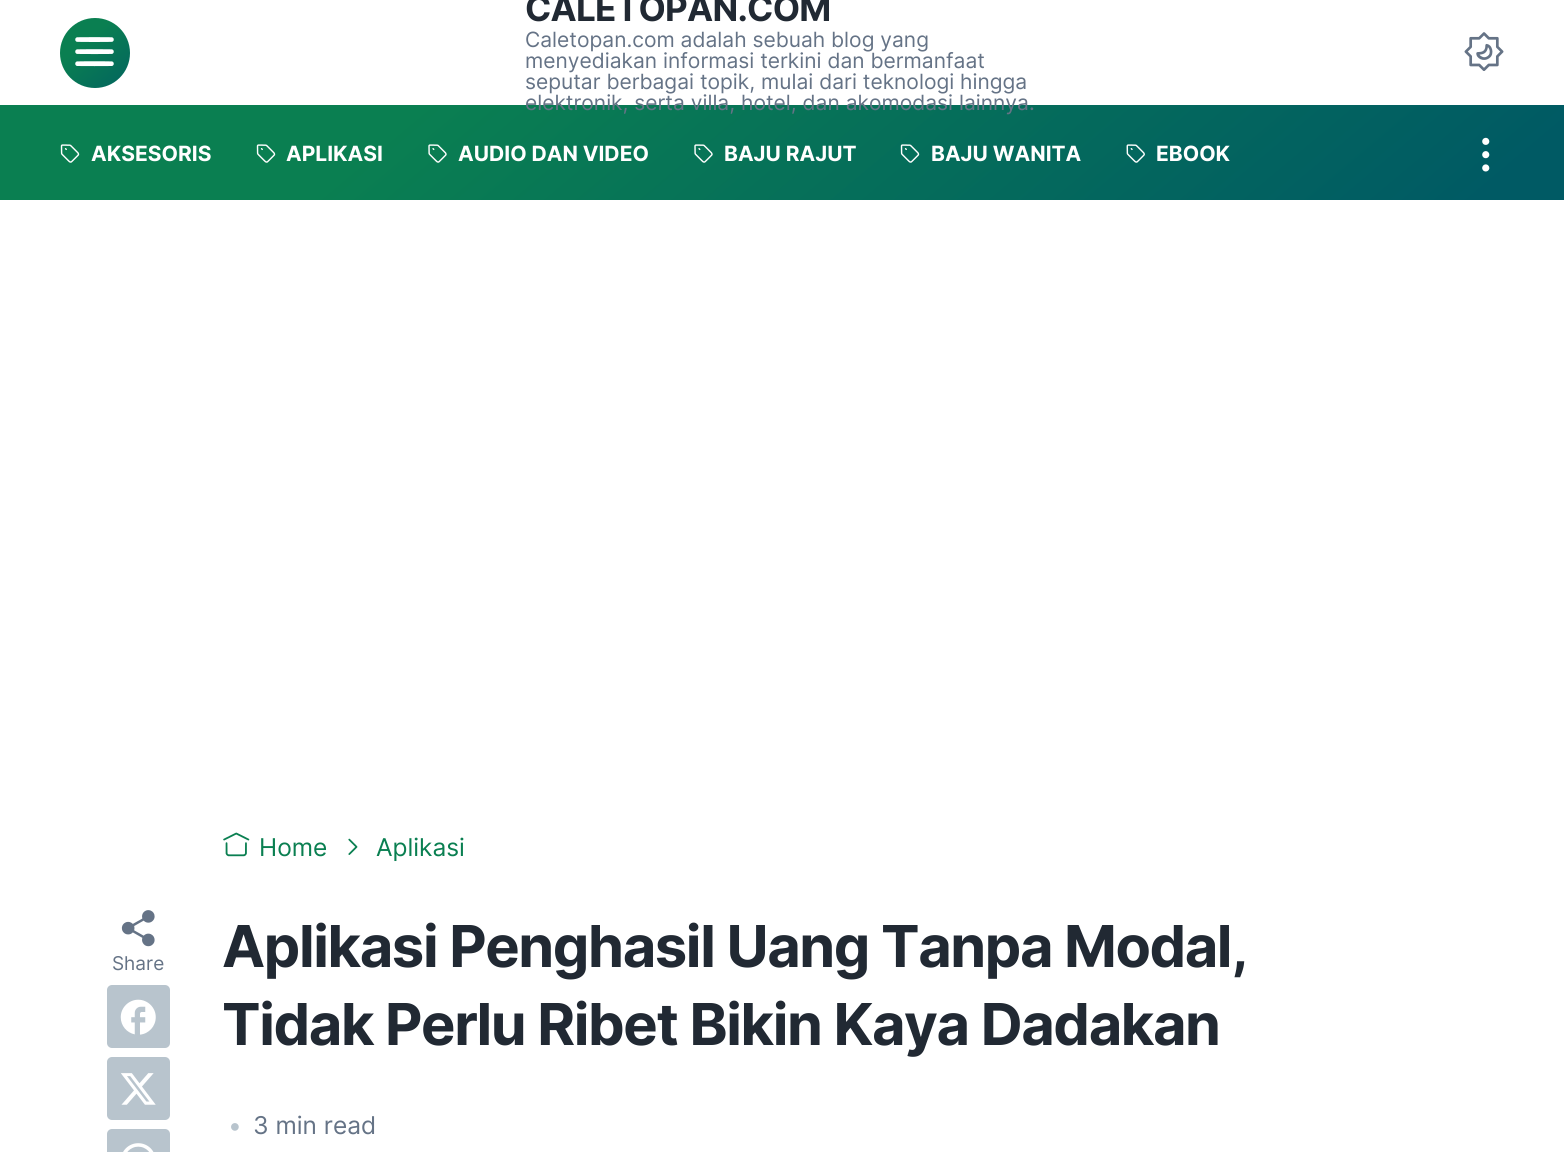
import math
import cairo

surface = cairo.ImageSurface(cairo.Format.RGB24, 1564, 1152)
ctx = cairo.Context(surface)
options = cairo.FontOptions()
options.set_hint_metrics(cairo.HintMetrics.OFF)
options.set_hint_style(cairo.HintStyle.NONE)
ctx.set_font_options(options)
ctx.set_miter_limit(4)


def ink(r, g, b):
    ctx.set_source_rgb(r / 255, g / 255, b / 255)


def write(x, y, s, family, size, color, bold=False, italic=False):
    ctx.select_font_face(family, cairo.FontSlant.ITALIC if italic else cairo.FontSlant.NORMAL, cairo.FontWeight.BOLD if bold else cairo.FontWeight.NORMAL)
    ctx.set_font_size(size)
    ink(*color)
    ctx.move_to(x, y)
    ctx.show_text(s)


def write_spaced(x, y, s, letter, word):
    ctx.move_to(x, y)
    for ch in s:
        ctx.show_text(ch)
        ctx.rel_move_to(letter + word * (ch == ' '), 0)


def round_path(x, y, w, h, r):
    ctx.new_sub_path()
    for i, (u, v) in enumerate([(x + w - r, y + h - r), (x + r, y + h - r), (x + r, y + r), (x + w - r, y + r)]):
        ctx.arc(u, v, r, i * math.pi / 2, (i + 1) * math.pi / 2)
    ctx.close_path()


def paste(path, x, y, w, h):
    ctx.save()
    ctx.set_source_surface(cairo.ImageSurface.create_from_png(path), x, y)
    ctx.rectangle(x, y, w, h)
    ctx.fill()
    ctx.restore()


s1 = dict(family="Inter", size=21, color=(101, 115, 134))
s2 = dict(family="Inter", size=21, color=(255, 255, 255), bold=True)
s3 = dict(family="Inter", size=24.5, color=(10, 127, 81))
s4 = dict(family="Inter", size=19, color=(101, 115, 134))
s5 = dict(family="Inter", size=24.5, color=(184, 196, 205))
s6 = dict(family="Inter", size=24.5, color=(101, 115, 134))

ink(255, 255, 255)
ctx.paint()
gradient = cairo.LinearGradient(63, 15, 142, 109)
gradient.add_color_stop_rgba(0.28, 0.039, 0.498, 0.318, 1)
gradient.add_color_stop_rgba(1, 0, 0.353, 0.392, 1)
ctx.set_source(gradient)
ctx.arc(95, 53, 35, 0, 2 * math.pi)
ctx.fill()
paste("pic1.png", 75, 37, 39, 30)
ctx.select_font_face("Inter", cairo.FontSlant.NORMAL, cairo.FontWeight.BOLD)
ctx.set_font_size(35)
ink(33, 41, 51)
write_spaced(525, 21, "CALETOPAN.COM", -0.75, 0)
write(525, 47, "Caletopan.com adalah sebuah blog yang", **s1)
write(525, 68, "menyediakan informasi terkini dan bermanfaat", **s1)
write(525, 89, "seputar berbagai topik, mulai dari teknologi hingga", **s1)
gradient = cairo.LinearGradient(436, -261, 1129, 565)
gradient.add_color_stop_rgba(0.25, 0.039, 0.498, 0.318, 1)
gradient.add_color_stop_rgba(0.95, 0, 0.353, 0.392, 1)
ctx.set_source(gradient)
ctx.rectangle(0, 105, 1564, 95)
ctx.fill()
write(525, 110, "elektronik, serta villa, hotel, dan akomodasi lainnya.", **s1)
paste("pic2.png", 1464, 32, 40, 39)
paste("pic3.png", 60, 144, 20, 19)
write(91, 161, "AKSESORIS", **s2)
paste("pic3.png", 256, 144, 20, 19)
write(286, 161, "APLIKASI", **s2)
paste("pic4.png", 428, 144, 19, 19)
write(458, 161, "AUDIO DAN VIDEO", **s2)
paste("pic5.png", 694, 144, 19, 19)
write(724, 161, "BAJU RAJUT", **s2)
paste("pic6.png", 900, 144, 20, 19)
write(931, 161, "BAJU WANITA", **s2)
paste("pic7.png", 1126, 144, 19, 19)
write(1156, 161, "EBOOK", **s2)
paste("pic8.png", 1482, 137, 8, 35)
paste("pic9.png", 223, 832, 27, 25)
write(259, 856, "Home", **s3)
paste("pic10.png", 348, 838, 10, 17)
write(376, 856, "Aplikasi", **s3)
paste("pic11.png", 121, 910, 34, 37)
write(112, 970, "Share", **s4)
ink(184, 196, 205)
round_path(107, 985, 63, 63, 5)
ctx.fill()
paste("pic12.png", 120, 999, 36, 36)
round_path(107, 1057, 63, 63, 5)
ctx.fill()
paste("pic13.png", 121, 1073, 35, 32)
round_path(107, 1129, 63, 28, 5)
ctx.fill()
paste("pic14.png", 123, 1143, 31, 9)
ctx.select_font_face("Inter", cairo.FontSlant.NORMAL, cairo.FontWeight.BOLD)
ctx.set_font_size(57.75)
ink(33, 41, 51)
write_spaced(222, 967, "Aplikasi Penghasil Uang Tanpa Modal,", -1.4, 0)
write_spaced(222, 1045, "Tidak Perlu Ribet Bikin Kaya Dadakan", -1.4, 0)
write(228, 1134, "•", **s5)
write(253, 1134, "3 min read", **s6)
surface.write_to_png("screenshot.png")
